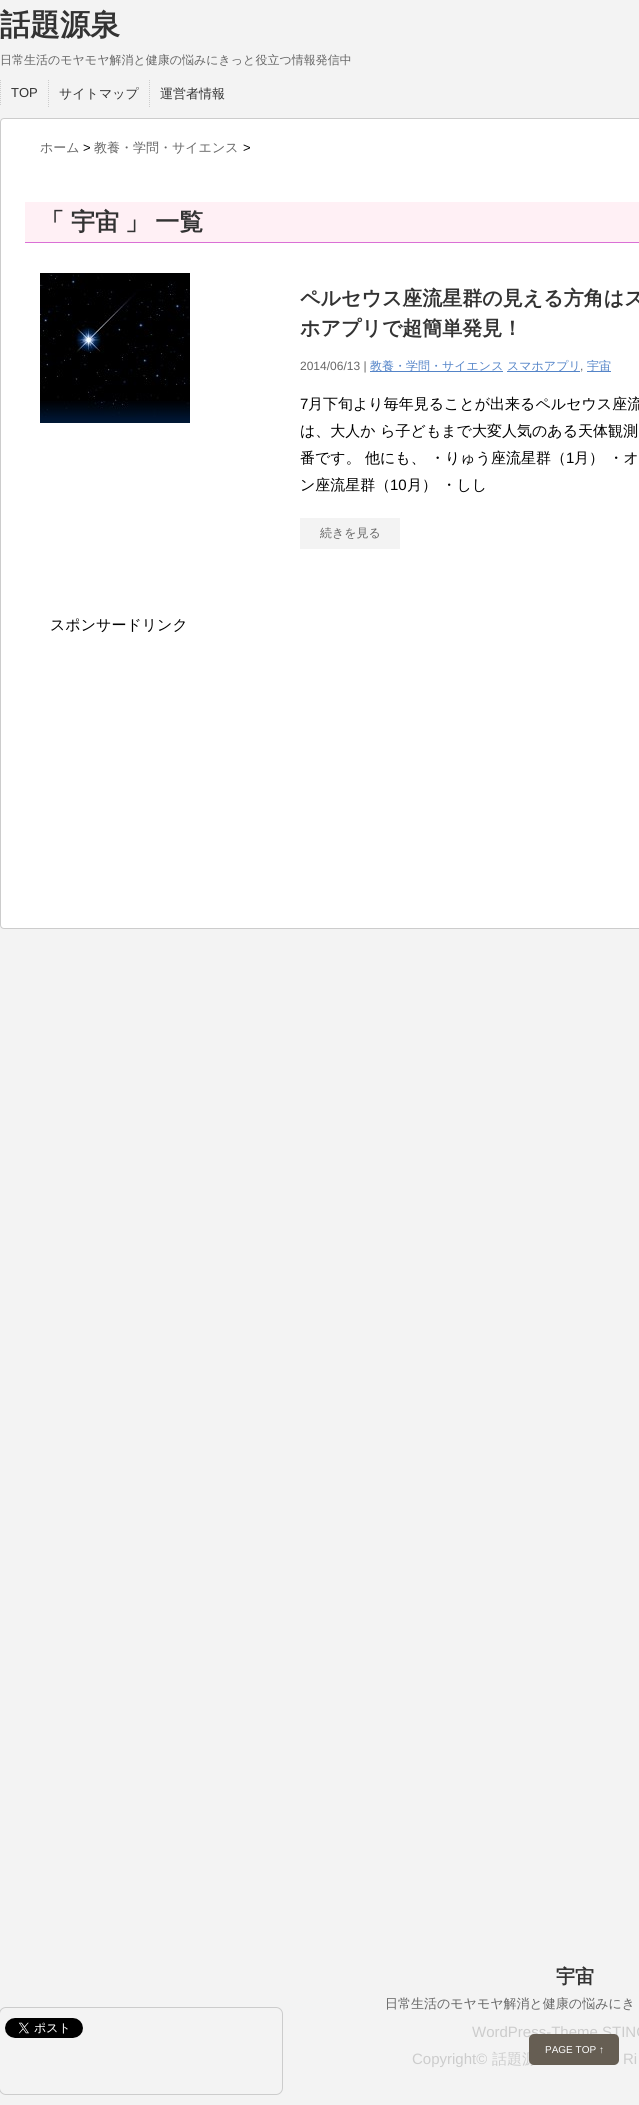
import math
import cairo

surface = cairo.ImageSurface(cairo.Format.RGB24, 639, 2105)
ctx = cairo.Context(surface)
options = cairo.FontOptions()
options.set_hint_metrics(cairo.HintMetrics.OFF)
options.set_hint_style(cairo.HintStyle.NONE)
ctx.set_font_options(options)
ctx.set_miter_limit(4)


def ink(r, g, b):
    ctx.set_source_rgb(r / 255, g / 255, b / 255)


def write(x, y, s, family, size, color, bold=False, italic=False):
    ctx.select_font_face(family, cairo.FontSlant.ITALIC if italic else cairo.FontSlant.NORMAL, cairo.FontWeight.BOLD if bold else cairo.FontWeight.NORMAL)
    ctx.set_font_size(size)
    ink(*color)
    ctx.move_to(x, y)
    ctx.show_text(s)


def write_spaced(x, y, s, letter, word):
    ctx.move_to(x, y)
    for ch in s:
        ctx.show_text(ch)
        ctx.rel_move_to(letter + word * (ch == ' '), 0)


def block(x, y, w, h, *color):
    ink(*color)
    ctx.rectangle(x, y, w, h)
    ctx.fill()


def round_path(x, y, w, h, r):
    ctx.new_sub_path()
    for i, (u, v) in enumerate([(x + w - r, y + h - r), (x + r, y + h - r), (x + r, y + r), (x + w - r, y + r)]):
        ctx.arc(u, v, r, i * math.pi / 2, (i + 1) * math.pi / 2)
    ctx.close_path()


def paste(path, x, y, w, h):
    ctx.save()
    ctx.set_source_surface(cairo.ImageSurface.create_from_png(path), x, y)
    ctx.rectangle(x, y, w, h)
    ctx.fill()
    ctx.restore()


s1 = dict(family="WenQuanYi Zen Hei", size=30, color=(51, 51, 51), bold=True)
s2 = dict(family="WenQuanYi Zen Hei Medium", size=12, color=(102, 102, 102))
s3 = dict(family="Liberation Sans", size=13, color=(51, 51, 51))
s4 = dict(family="WenQuanYi Zen Hei Medium", size=13, color=(51, 51, 51))
s5 = dict(family="WenQuanYi Zen Hei Medium", size=13, color=(102, 102, 102))
s6 = dict(family="Liberation Sans", size=13, color=(0, 0, 0))
s7 = dict(family="WenQuanYi Zen Hei", size=24, color=(51, 51, 51), bold=True)
s8 = dict(family="WenQuanYi Zen Hei", size=20, color=(51, 51, 51), bold=True)
s9 = dict(family="Liberation Sans", size=12, color=(102, 102, 102))
s10 = dict(family="WenQuanYi Zen Hei Medium", size=12, color=(84, 132, 200))
s11 = dict(family="Liberation Sans", size=15, color=(0, 0, 0))
s12 = dict(family="WenQuanYi Zen Hei Medium", size=15, color=(0, 0, 0))
s13 = dict(family="WenQuanYi Zen Hei", size=19, color=(51, 51, 51), bold=True)
s14 = dict(family="Liberation Sans", size=15, color=(204, 204, 204))
s15 = dict(family="WenQuanYi Zen Hei Medium", size=15, color=(204, 204, 204))
s16 = dict(family="Liberation Sans", size=10, color=(255, 255, 255))

ink(243, 243, 243)
ctx.paint()
write(0, 35, "話題源泉", **s1)
write(0, 64, "日常生活のモヤモヤ解消と健康の悩みにきっと役立つ情報発信中", **s2)
ctx.new_path()
ctx.move_to(0.5, 80)
ctx.line_to(0.5, 105)
ink(204, 204, 204)
ctx.set_line_width(1)
ctx.set_dash([1, 1])
ctx.stroke()
write(11, 97, "TOP", **s3)
ctx.new_path()
ctx.move_to(48.5, 80)
ctx.line_to(48.5, 108)
ink(204, 204, 204)
ctx.stroke()
write(59, 98, "サイトマップ", **s4)
ctx.new_path()
ctx.move_to(149.5, 80)
ctx.line_to(149.5, 108)
ink(204, 204, 204)
ctx.stroke()
write(160, 98, "運営者情報", **s4)
ink(255, 255, 255)
round_path(0.5, 118.5, 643, 810, 3.5)
ctx.fill_preserve()
ink(204, 204, 204)
ctx.set_dash([])
ctx.stroke()
write(40, 152, "ホーム", **s5)
write(83, 152, ">", **s6)
write(94, 152, "教養・学問・サイエンス", **s5)
write(243, 152, ">", **s6)
block(25, 202, 614, 40, 255, 240, 245)
block(25, 242, 614, 1, 218, 112, 214)
write(40, 230, "「", **s7)
write(71, 230, "宇宙", **s7)
write_spaced(125, 230, "」 一覧", 0, -1)
paste("pic1.png", 40, 273, 150, 150)
write(300, 305, "ペルセウス座流星群の見える方角はス", **s8)
write(300, 335, "ホアプリで超簡単発見！", **s8)
write(300, 370, "2014/06/13 |", **s9)
block(370, 371, 133, 1, 84, 132, 200)
write(370, 370, "教養・学問・サイエンス", **s10)
block(507, 371, 73, 1, 84, 132, 200)
write(507, 370, "スマホアプリ", **s10)
write(580, 370, ",", **s9)
block(587, 371, 24, 1, 84, 132, 200)
write(587, 370, "宇宙", **s10)
write(300, 409, "7", **s11)
write(308, 409, "月下旬より毎年見ることが出来るペルセウス座流", **s12)
write(300, 436, "は、大人か ら子どもまで大変人気のある天体観測", **s12)
write(300, 463, "番です。", **s12)
write(365, 463, "他にも、", **s12)
write(430, 463, "・りゅう座流星群（", **s12)
write(566, 463, "1", **s11)
write(574, 463, "月） ・オ", **s12)
write(300, 490, "ン座流星群（", **s12)
write(390, 490, "10", **s11)
write(407, 490, "月） ・しし", **s12)
block(300, 518, 100, 31, 243, 243, 243)
write(320, 537, "続きを見る", **s2)
write(50, 630, "スポンサードリンク", **s12)
round_path(-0.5, 2007.5, 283, 87, 6.5)
ink(204, 204, 204)
ctx.stroke()
paste("pic2.png", 5, 2018, 78, 20)
write(556, 1983, "宇宙", **s13)
write(385, 2008, "日常生活のモヤモヤ解消と健康の悩みにき", **s5)
write(472, 2037, "WordPress-Theme STING", **s14)
write(412, 2064, "Copyright©", **s14)
write(492, 2064, "話題源", **s15)
write(623, 2064, "Ri", **s14)
ink(102, 94, 83)
round_path(529, 2034, 90, 31, 5)
ctx.fill()
write(545, 2053, "PAGE TOP ↑", **s16)
surface.write_to_png("screenshot.png")
